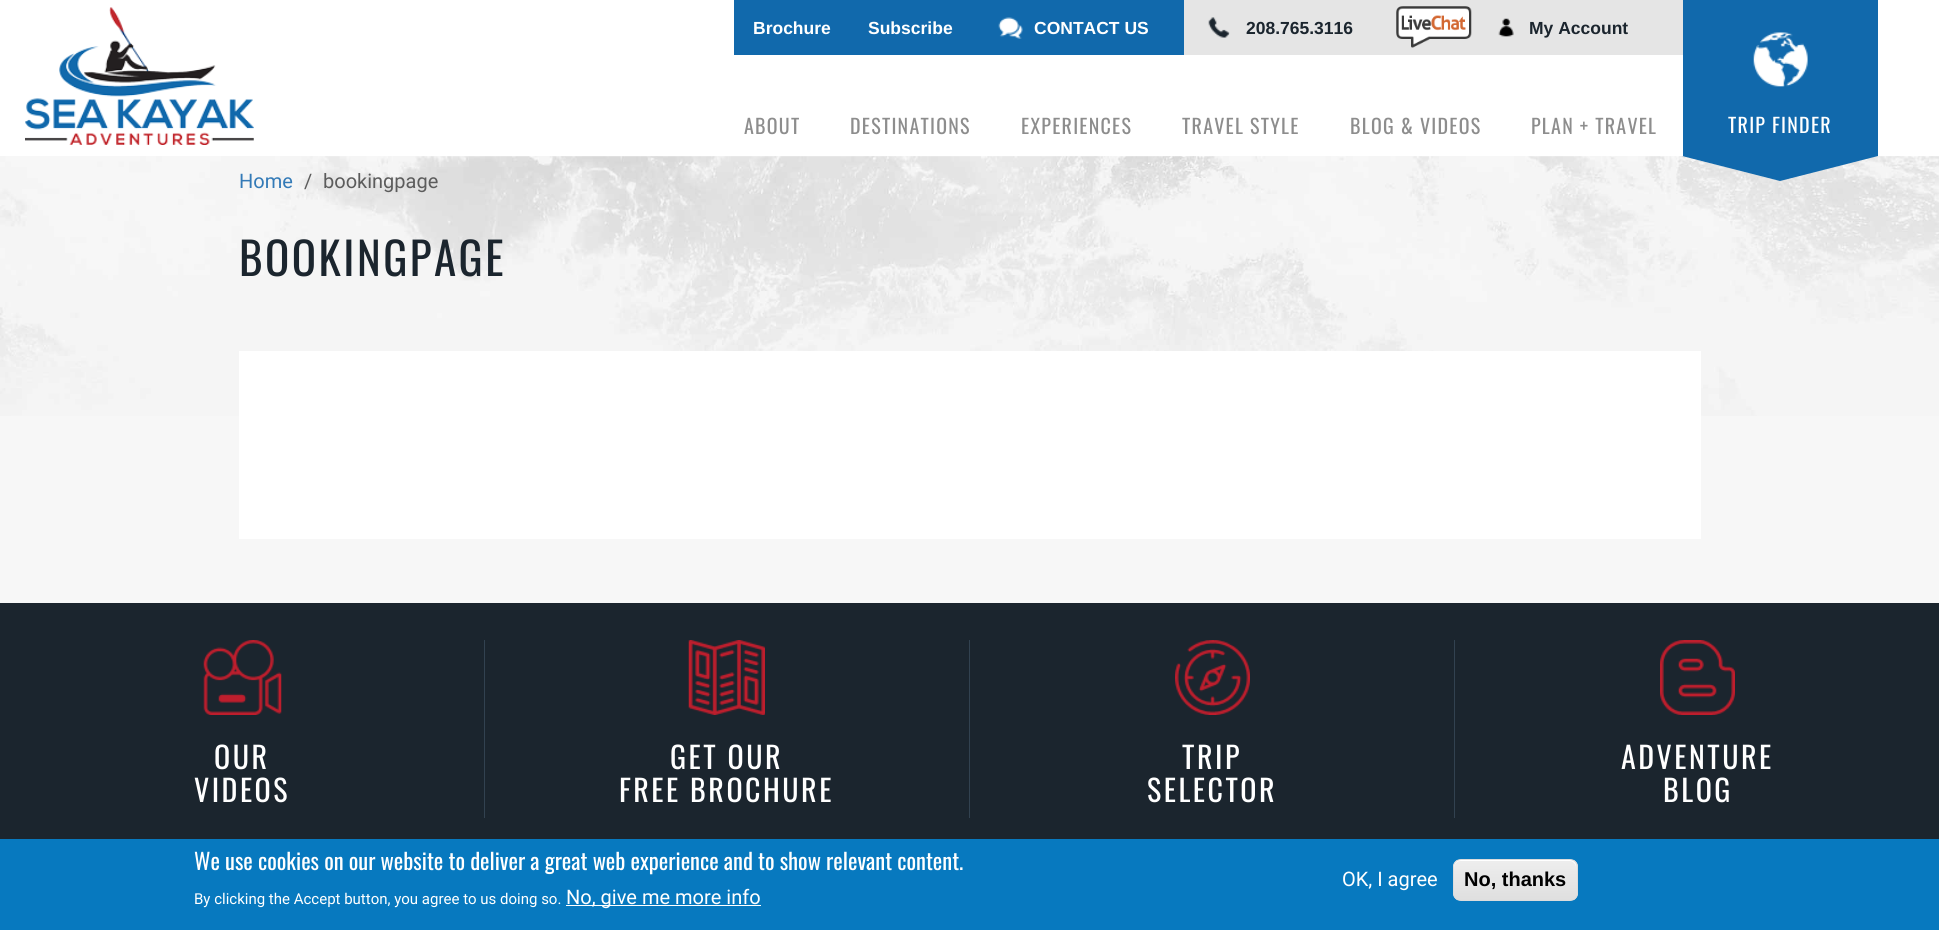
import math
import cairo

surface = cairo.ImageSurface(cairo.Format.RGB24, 1939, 930)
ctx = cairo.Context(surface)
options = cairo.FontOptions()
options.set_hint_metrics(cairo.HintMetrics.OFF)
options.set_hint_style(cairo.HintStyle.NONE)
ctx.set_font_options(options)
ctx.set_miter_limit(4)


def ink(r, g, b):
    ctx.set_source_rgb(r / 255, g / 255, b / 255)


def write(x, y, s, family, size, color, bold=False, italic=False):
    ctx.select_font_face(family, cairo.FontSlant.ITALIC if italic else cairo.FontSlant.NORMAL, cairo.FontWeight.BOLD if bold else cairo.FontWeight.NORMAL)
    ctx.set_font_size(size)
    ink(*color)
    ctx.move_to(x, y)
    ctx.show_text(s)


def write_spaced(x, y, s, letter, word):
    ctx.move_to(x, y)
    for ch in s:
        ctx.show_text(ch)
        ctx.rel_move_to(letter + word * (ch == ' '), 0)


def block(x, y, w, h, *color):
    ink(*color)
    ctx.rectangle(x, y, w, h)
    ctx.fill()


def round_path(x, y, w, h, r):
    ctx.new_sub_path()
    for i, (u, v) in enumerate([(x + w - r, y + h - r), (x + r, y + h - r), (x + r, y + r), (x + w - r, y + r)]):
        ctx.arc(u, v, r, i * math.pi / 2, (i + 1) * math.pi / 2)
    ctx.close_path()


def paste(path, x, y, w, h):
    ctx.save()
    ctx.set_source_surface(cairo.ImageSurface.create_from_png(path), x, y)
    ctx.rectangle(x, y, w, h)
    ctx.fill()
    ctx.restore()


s1 = dict(family="Liberation Sans", size=17.5, color=(255, 255, 255), bold=True)
s2 = dict(family="Liberation Sans", size=17.5, color=(27, 37, 46), bold=True)
s3 = dict(family="Roboto", size=20, color=(51, 122, 183))
s4 = dict(family="Roboto", size=20, color=(92, 92, 92))
s5 = dict(family="Oswald", size=22.5, color=(255, 255, 255))
s6 = dict(family="Roboto", size=15, color=(255, 255, 255))
s7 = dict(family="Roboto", size=20, color=(255, 255, 255))
s8 = dict(family="Liberation Sans", size=20, color=(0, 0, 0), bold=True)

ink(247, 247, 247)
ctx.paint()
block(0, 0, 1939, 156, 255, 255, 255)
paste("pic1.png", 25, 7, 229, 138)
block(1184, 0, 499, 55, 229, 229, 229)
block(734, 0, 450, 55, 17, 105, 172)
write(753, 34, "Brochure", **s1)
write(868, 34, "Subscribe", **s1)
paste("pic2.png", 998, 17, 25, 22)
write(1034, 34, "CONTACT US", **s1)
paste("pic3.png", 1208, 17, 22, 21)
write(1246, 34, "208.765.3116", **s2)
paste("pic4.png", 1396, 6, 76, 42)
paste("pic5.png", 1498, 18, 16, 19)
write(1529, 34, "My Account", **s2)
ctx.select_font_face("Oswald")
ctx.set_font_size(20)
ink(141, 141, 141)
write_spaced(744, 134, "ABOUT", 1.25, 0)
write_spaced(850, 134, "DESTINATIONS", 1.25, 0)
write_spaced(1021, 134, "EXPERIENCES", 1.25, 0)
write_spaced(1182, 134, "TRAVEL STYLE", 1.25, 0)
write_spaced(1350, 134, "BLOG & VIDEOS", 1.25, 0)
write_spaced(1531, 134, "PLAN + TRAVEL", 1.25, 0)
block(1683, 0, 195, 156, 17, 105, 172)
paste("pic6.png", 1753, 32, 55, 55)
ink(255, 255, 255)
write_spaced(1728, 133, "TRIP FINDER", 1.25, 0)
paste("pic7.png", 0, 156, 1939, 260)
ink(17, 105, 172)
ctx.new_path()
ctx.move_to(1682, 156)
ctx.line_to(1878, 156)
ctx.line_to(1780, 181)
ctx.close_path()
ctx.fill()
write(239, 188, "Home", **s3)
write(304, 188, "/", **s4)
write(323, 188, "bookingpage", **s4)
ctx.select_font_face("Oswald")
ctx.set_font_size(45)
ink(27, 37, 46)
write_spaced(239, 276, "BOOKINGPAGE", 2.5, 0)
block(239, 351, 1462, 188, 255, 255, 255)
block(0, 603, 1939, 236, 27, 37, 46)
block(484, 640, 1, 178, 50, 66, 80)
paste("pic8.png", 203, 640, 79, 75)
ctx.set_font_size(30)
ink(255, 255, 255)
write_spaced(214, 769, "OUR", 2.5, 0)
write_spaced(194, 802, "VIDEOS", 2.5, 0)
block(969, 640, 1, 178, 50, 66, 80)
paste("pic9.png", 688, 640, 77, 75)
ink(255, 255, 255)
write_spaced(670, 769, "GET OUR", 2.5, 0)
write_spaced(619, 802, "FREE BROCHURE", 2.5, 0)
block(1454, 640, 1, 178, 50, 66, 80)
paste("pic10.png", 1175, 640, 75, 75)
ink(255, 255, 255)
write_spaced(1182, 769, "TRIP", 2.5, 0)
write_spaced(1147, 802, "SELECTOR", 2.5, 0)
paste("pic11.png", 1660, 640, 75, 75)
write_spaced(1621, 769, "ADVENTURE", 2.5, 0)
write_spaced(1663, 802, "BLOG", 2.5, 0)
block(0, 839, 1939, 91, 7, 121, 191)
write(194, 870, "We use cookies on our website to deliver a great web experience and to show relevant content.", **s5)
write(194, 904, "By clicking the Accept button, you agree to us doing so.", **s6)
block(566, 905, 195, 1, 255, 255, 255)
write(566, 904, "No, give me more info", **s7)
write(1342, 886, "OK, I agree", **s7)
ctx.save()
round_path(1453, 859, 125, 42, 8)
ctx.clip()
gradient = cairo.LinearGradient(1515, 860, 1515, 900)
gradient.add_color_stop_rgba(0.05, 0.929, 0.929, 0.929, 1)
gradient.add_color_stop_rgba(1, 0.875, 0.875, 0.875, 1)
ctx.set_source(gradient)
ctx.rectangle(1453, 860, 125, 40)
ctx.fill()
ctx.restore()
ctx.new_path()
ctx.move_to(1460, 861)
ctx.line_to(1570, 861)
ctx.curve_to(1573, 861, 1576, 864, 1576, 868)
ctx.line_to(1576, 866)
ctx.curve_to(1576, 863, 1573, 860, 1570, 860)
ctx.line_to(1460, 860)
ctx.curve_to(1457, 860, 1454, 863, 1454, 866)
ctx.line_to(1454, 868)
ctx.curve_to(1454, 864, 1457, 861, 1460, 861)
ctx.close_path()
ctx.fill()
round_path(1453.5, 859.5, 124, 41, 7.5)
ink(220, 220, 220)
ctx.set_line_width(1)
ctx.stroke()
write(1464, 886, "No, thanks", **s8)
surface.write_to_png("screenshot.png")
